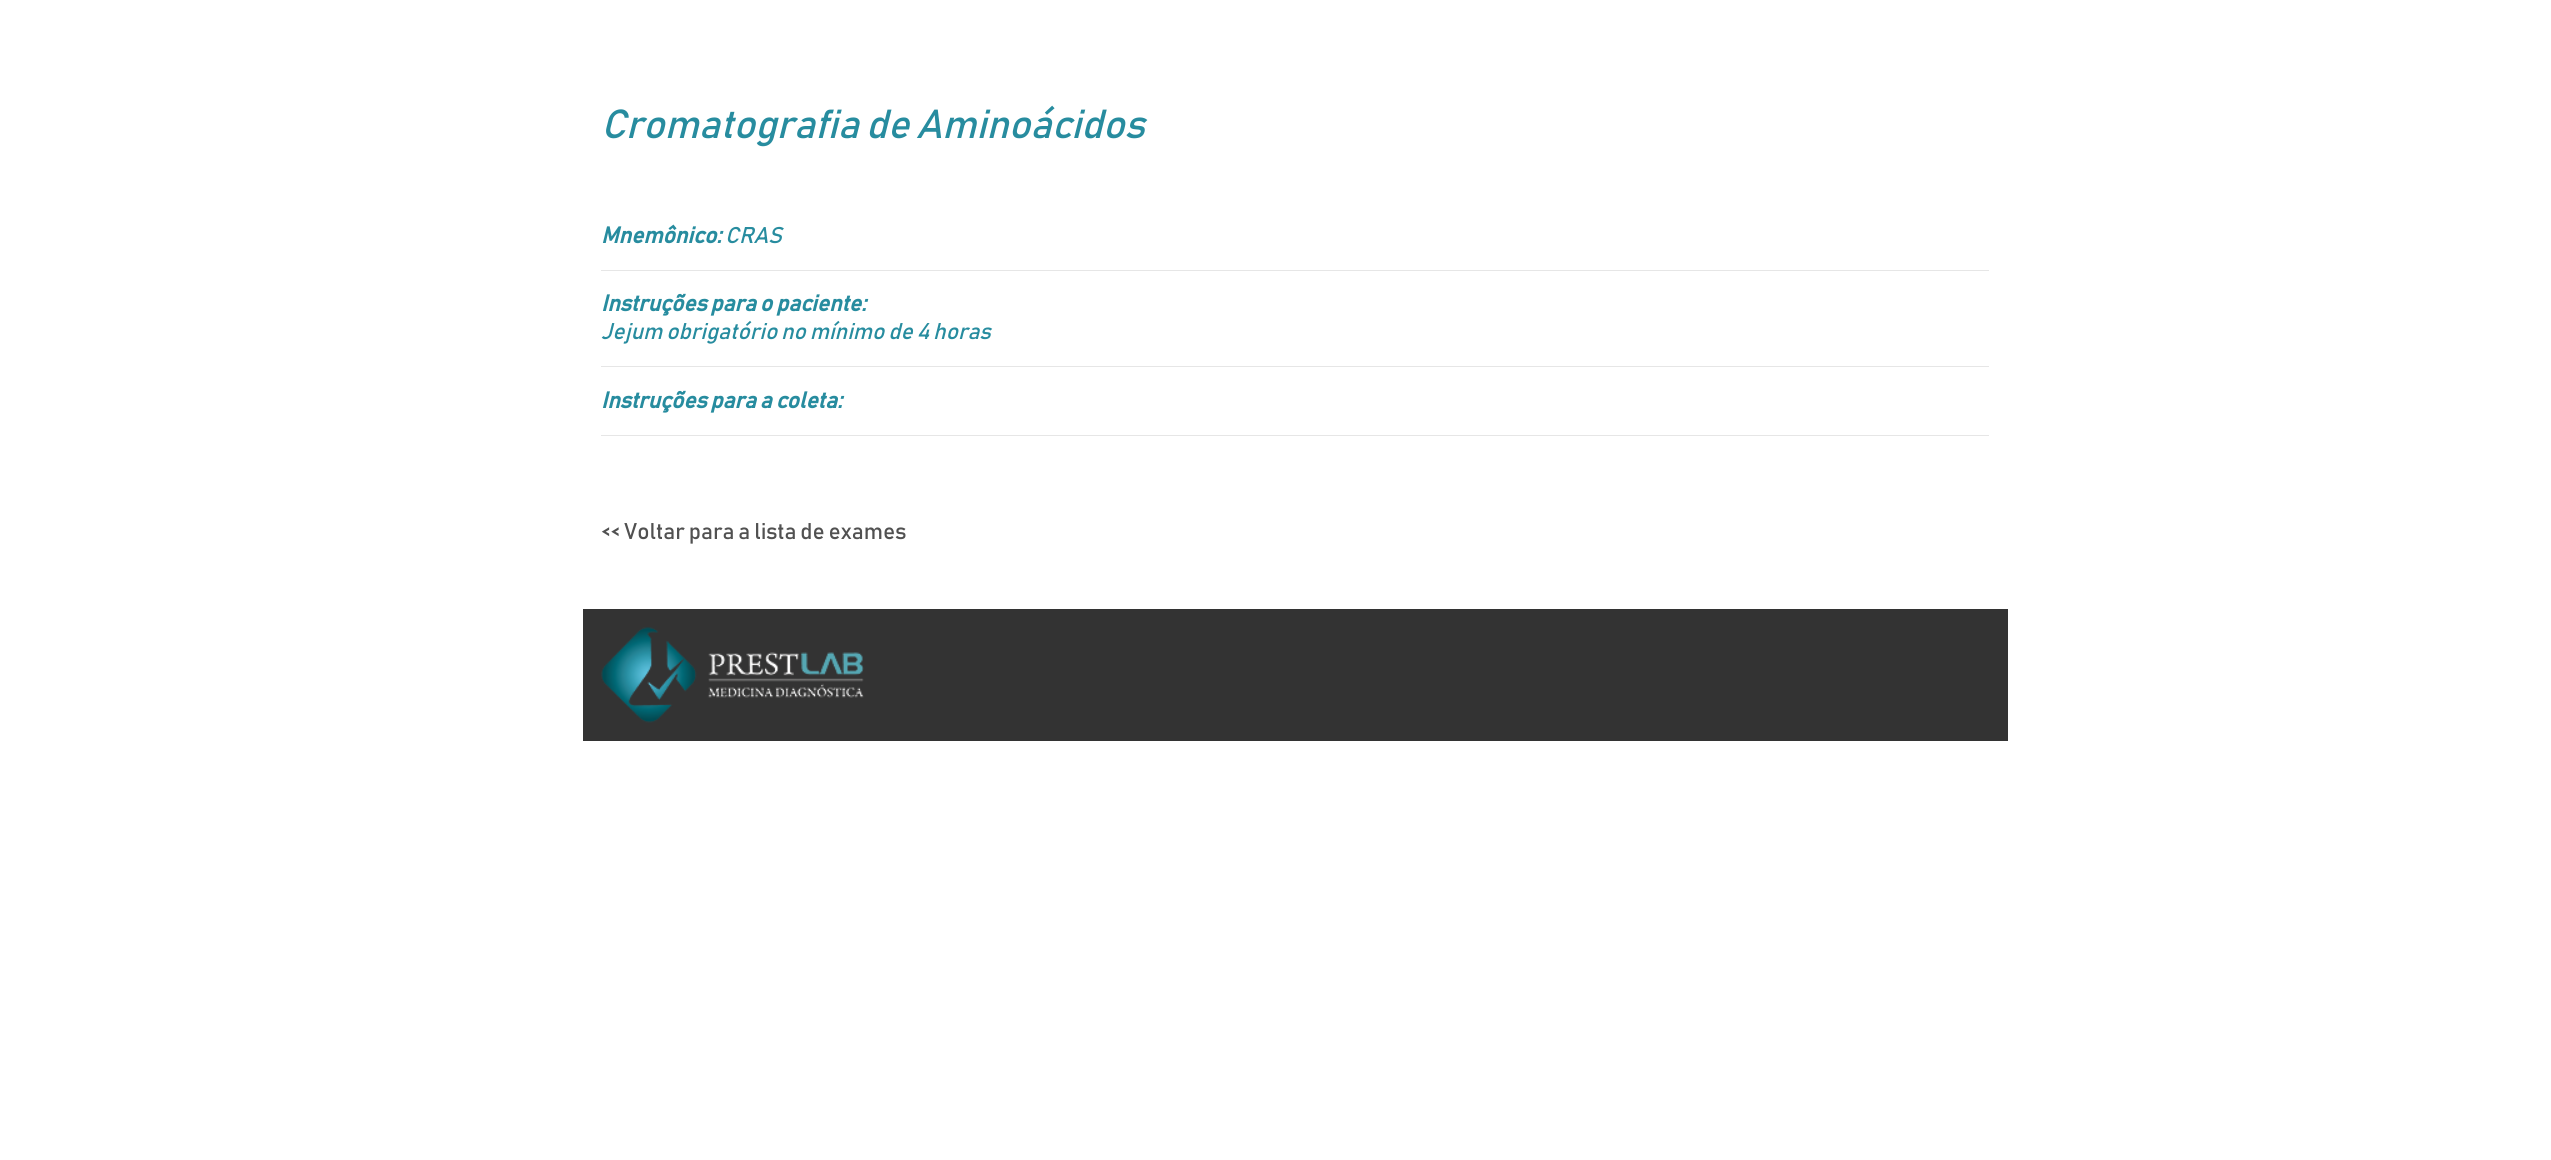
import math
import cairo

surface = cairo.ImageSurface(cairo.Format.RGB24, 2551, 1160)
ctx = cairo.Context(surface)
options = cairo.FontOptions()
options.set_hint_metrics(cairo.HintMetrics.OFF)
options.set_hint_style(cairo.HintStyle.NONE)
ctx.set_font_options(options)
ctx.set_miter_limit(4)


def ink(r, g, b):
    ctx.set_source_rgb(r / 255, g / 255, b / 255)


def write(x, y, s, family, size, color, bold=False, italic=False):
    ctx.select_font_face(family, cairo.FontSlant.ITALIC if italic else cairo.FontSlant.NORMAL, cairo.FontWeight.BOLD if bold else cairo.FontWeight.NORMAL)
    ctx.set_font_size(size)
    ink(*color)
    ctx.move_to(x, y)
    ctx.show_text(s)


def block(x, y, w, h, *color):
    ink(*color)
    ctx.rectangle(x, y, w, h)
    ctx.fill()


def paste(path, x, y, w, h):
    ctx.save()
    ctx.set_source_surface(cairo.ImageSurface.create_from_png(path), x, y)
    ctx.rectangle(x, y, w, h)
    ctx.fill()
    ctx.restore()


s1 = dict(family="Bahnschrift", size=40, color=(39, 140, 159), italic=True)
s2 = dict(family="Bahnschrift", size=22.5, color=(39, 140, 159), bold=True, italic=True)
s3 = dict(family="Bahnschrift", size=22.5, color=(39, 140, 159), italic=True)
s4 = dict(family="Bahnschrift", size=22.5, color=(81, 81, 81))

ink(255, 255, 255)
ctx.paint()
write(601, 138, "Cromatografia de Aminoácidos", **s1)
write(601, 243, "Mnemônico:", **s2)
write(725, 243, "CRAS", **s3)
block(601, 270, 1388, 1, 230, 230, 230)
write(601, 311, "Instruções para o paciente:", **s2)
write(601, 339, "Jejum obrigatório no mínimo de 4 horas", **s3)
block(601, 366, 1388, 1, 230, 230, 230)
write(601, 408, "Instruções para a coleta:", **s2)
block(601, 435, 1388, 1, 230, 230, 230)
write(601, 539, "<< Voltar para a lista de exames", **s4)
block(583, 609, 1425, 132, 51, 51, 51)
paste("pic1.png", 601, 627, 263, 96)
surface.write_to_png("screenshot.png")
